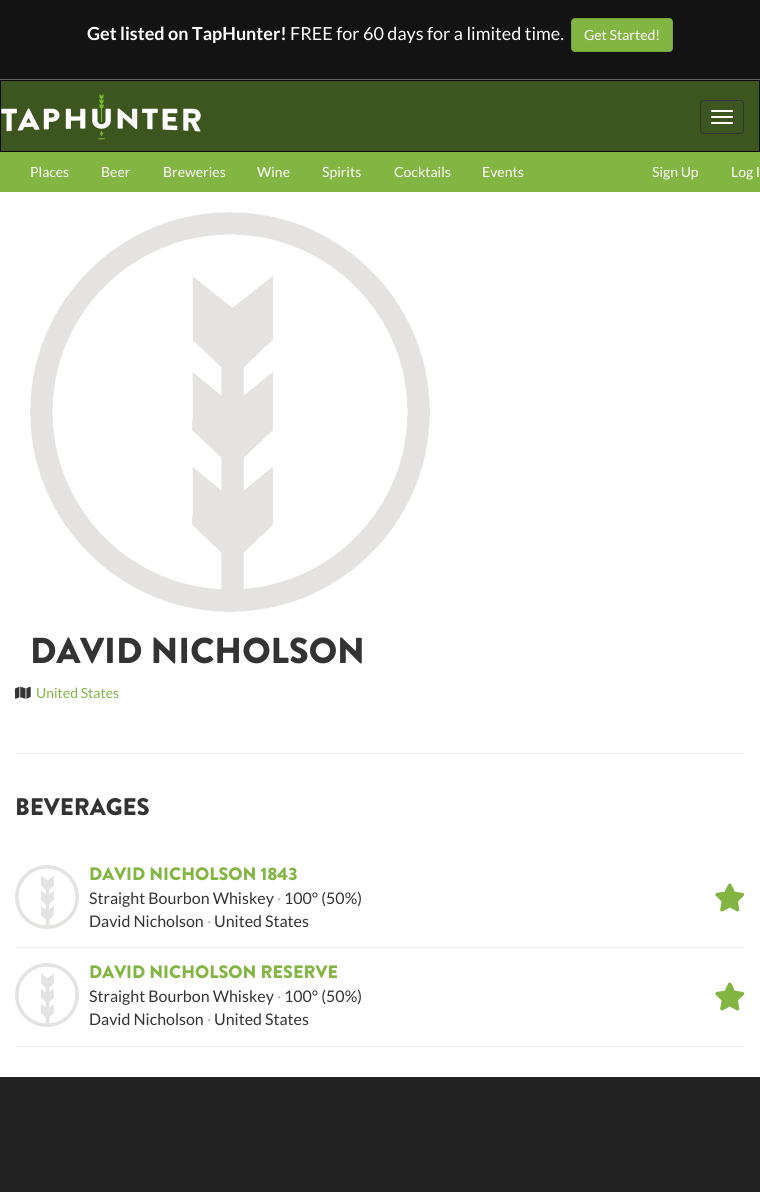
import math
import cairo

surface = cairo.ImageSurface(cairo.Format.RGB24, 760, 1192)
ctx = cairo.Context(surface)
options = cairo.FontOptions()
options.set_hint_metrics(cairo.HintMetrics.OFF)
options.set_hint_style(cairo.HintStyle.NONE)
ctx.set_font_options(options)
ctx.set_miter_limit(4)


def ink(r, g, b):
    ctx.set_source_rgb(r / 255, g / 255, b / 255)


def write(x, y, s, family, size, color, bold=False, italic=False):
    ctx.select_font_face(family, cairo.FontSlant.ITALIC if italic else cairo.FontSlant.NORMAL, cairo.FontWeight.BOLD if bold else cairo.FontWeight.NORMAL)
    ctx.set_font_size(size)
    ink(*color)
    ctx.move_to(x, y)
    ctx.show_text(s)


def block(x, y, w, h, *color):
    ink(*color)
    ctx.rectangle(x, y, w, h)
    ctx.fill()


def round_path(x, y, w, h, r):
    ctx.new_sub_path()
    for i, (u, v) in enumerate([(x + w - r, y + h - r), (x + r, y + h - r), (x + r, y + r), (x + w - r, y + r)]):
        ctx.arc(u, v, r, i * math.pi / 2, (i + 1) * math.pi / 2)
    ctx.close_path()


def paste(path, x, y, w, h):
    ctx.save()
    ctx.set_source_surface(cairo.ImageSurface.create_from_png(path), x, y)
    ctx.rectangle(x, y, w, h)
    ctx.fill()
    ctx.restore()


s1 = dict(family="Lato", size=18, color=(255, 255, 255), bold=True)
s2 = dict(family="Lato", size=18, color=(255, 255, 255))
s3 = dict(family="Lato", size=14, color=(255, 255, 255))
s4 = dict(family="Brandon Grotesque Black", size=36, color=(51, 51, 51))
s5 = dict(family="Lato", size=14, color=(131, 181, 67))
s6 = dict(family="Brandon Grotesque Black", size=24, color=(51, 51, 51))
s7 = dict(family="Brandon Grotesque Black", size=18, color=(131, 181, 67))
s8 = dict(family="Lato", size=16, color=(51, 51, 51))
s9 = dict(family="Lato", size=16, color=(187, 187, 187))

ink(255, 255, 255)
ctx.paint()
block(0, 0, 760, 79, 19, 19, 19)
block(0, 79, 760, 1, 100, 100, 100)
write(87, 40, "Get listed on TapHunter!", **s1)
write(290, 40, "FREE for 60 days for a limited time.", **s2)
ink(131, 181, 67)
round_path(571.5, 18.5, 101, 33, 3.5)
ctx.fill_preserve()
ink(118, 162, 60)
ctx.set_line_width(1)
ctx.stroke()
write(584, 40, "Get Started!", **s3)
ink(61, 85, 30)
ctx.rectangle(0.5, 80.5, 759, 71)
ctx.fill_preserve()
ink(9, 9, 9)
ctx.stroke()
paste("pic1.png", 1, 94, 200, 46)
round_path(700.5, 100.5, 43, 33, 3.5)
ink(51, 51, 51)
ctx.stroke()
ink(255, 255, 255)
round_path(711, 110, 22, 2, 1)
ctx.fill()
round_path(711, 116, 22, 2, 1)
ctx.fill()
round_path(711, 122, 22, 2, 1)
ctx.fill()
block(0, 152, 760, 40, 131, 181, 67)
write(30, 177, "Places", **s3)
write(101, 177, "Beer", **s3)
write(163, 177, "Breweries", **s3)
write(257, 177, "Wine", **s3)
write(322, 177, "Spirits", **s3)
write(394, 177, "Cocktails", **s3)
write(482, 177, "Events", **s3)
write(652, 177, "Sign Up", **s3)
write(731, 177, "Log I", **s3)
paste("pic2.png", 30, 212, 400, 400)
write(30, 663, "DAVID NICHOLSON", **s4)
paste("pic3.png", 15, 686, 16, 13)
write(36, 698, "United States", **s5)
block(15, 753, 730, 1, 238, 238, 238)
write(15, 815, "BEVERAGES", **s6)
block(15, 947, 730, 1, 238, 238, 238)
paste("pic4.png", 15, 865, 64, 64)
write(89, 880, "DAVID NICHOLSON 1843", **s7)
write(89, 904, "Straight Bourbon Whiskey", **s8)
write(277, 904, "·", **s9)
write(284, 904, "100° (50%)", **s8)
write(89, 927, "David Nicholson", **s8)
write(207, 927, "·", **s9)
write(214, 927, "United States", **s8)
paste("pic5.png", 715, 883, 30, 29)
block(15, 1046, 730, 1, 238, 238, 238)
paste("pic4.png", 15, 963, 64, 64)
write(89, 978, "DAVID NICHOLSON RESERVE", **s7)
write(89, 1002, "Straight Bourbon Whiskey", **s8)
write(277, 1002, "·", **s9)
write(284, 1002, "100° (50%)", **s8)
write(89, 1025, "David Nicholson", **s8)
write(207, 1025, "·", **s9)
write(214, 1025, "United States", **s8)
paste("pic5.png", 715, 982, 30, 29)
block(0, 1077, 760, 115, 34, 34, 34)
surface.write_to_png("screenshot.png")
